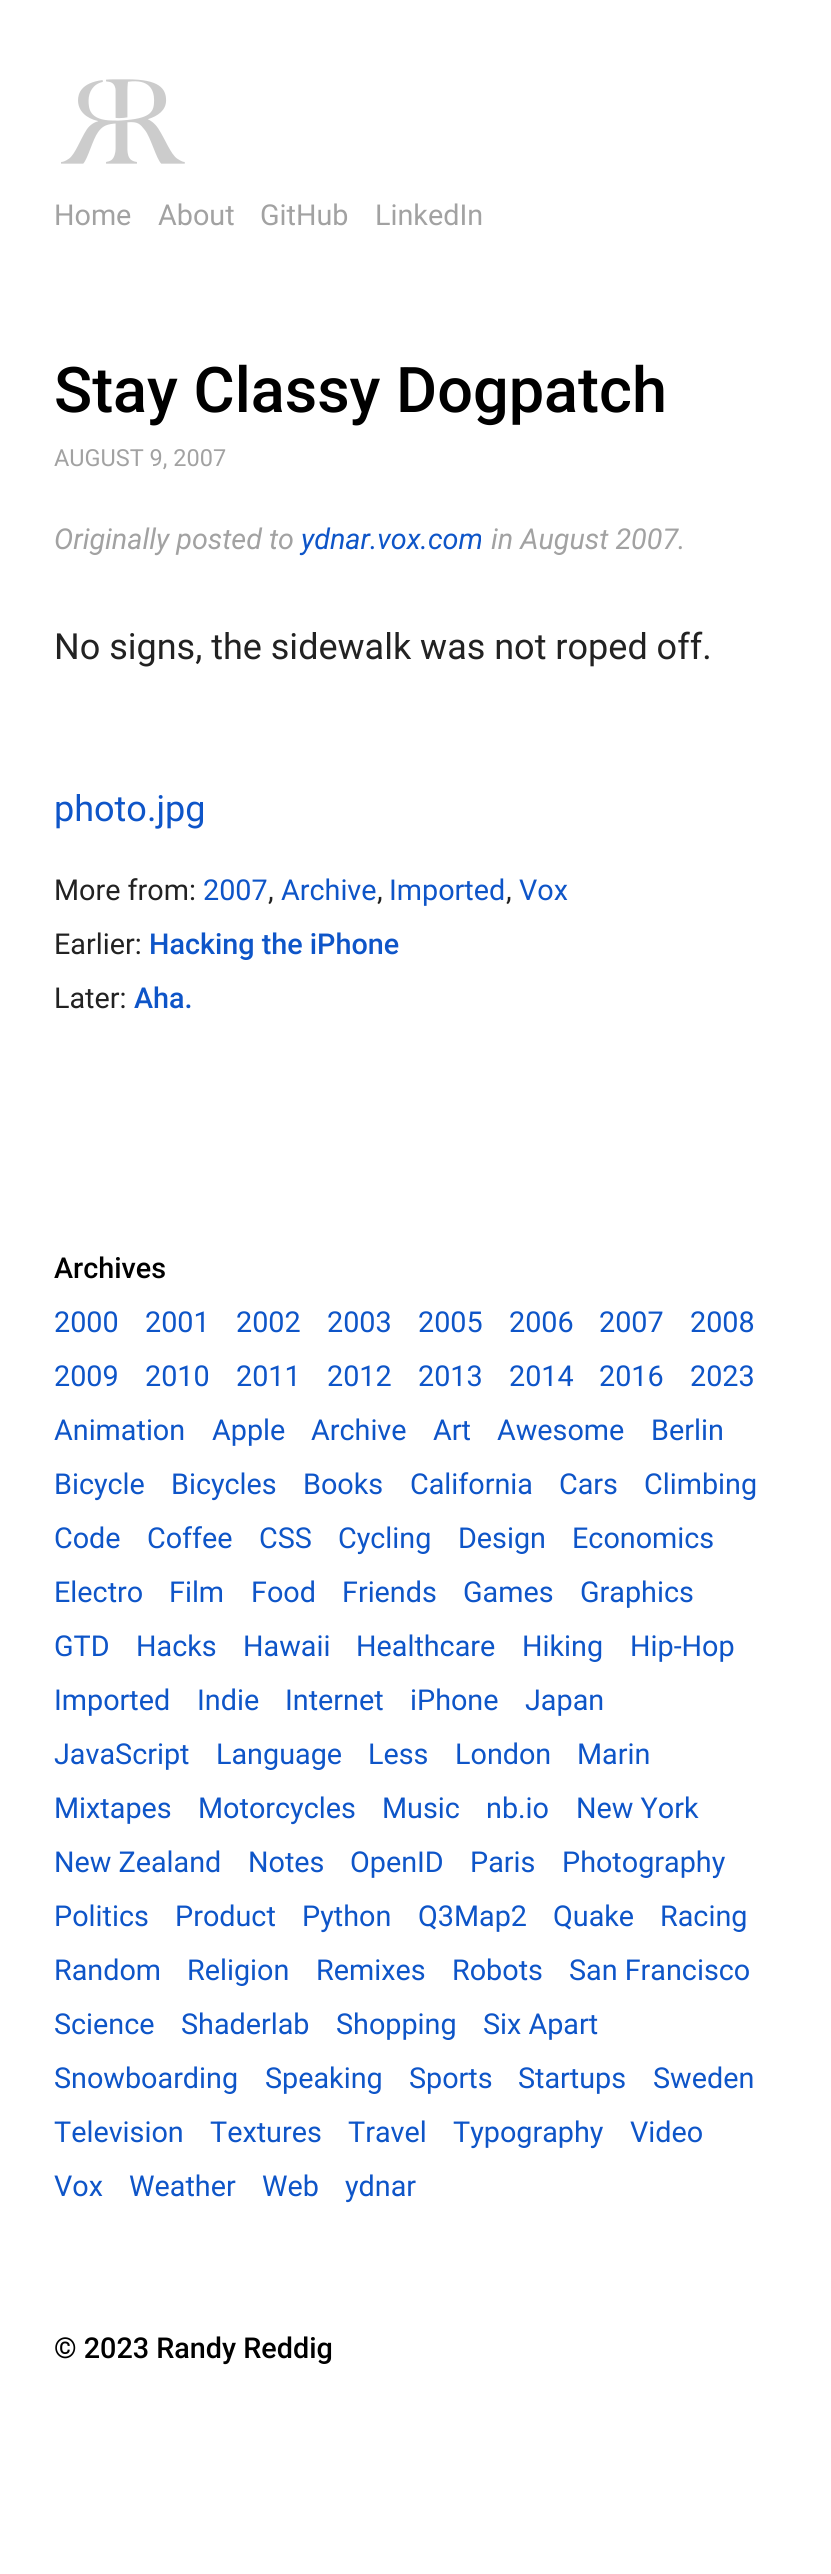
import math
import cairo

surface = cairo.ImageSurface(cairo.Format.RGB24, 831, 2574)
ctx = cairo.Context(surface)
options = cairo.FontOptions()
options.set_hint_metrics(cairo.HintMetrics.OFF)
options.set_hint_style(cairo.HintStyle.NONE)
ctx.set_font_options(options)
ctx.set_miter_limit(4)


def ink(r, g, b):
    ctx.set_source_rgb(r / 255, g / 255, b / 255)


def write(x, y, s, family, size, color, bold=False, italic=False):
    ctx.select_font_face(family, cairo.FontSlant.ITALIC if italic else cairo.FontSlant.NORMAL, cairo.FontWeight.BOLD if bold else cairo.FontWeight.NORMAL)
    ctx.set_font_size(size)
    ink(*color)
    ctx.move_to(x, y)
    ctx.show_text(s)


def paste(path, x, y, w, h):
    ctx.save()
    ctx.set_source_surface(cairo.ImageSurface.create_from_png(path), x, y)
    ctx.rectangle(x, y, w, h)
    ctx.fill()
    ctx.restore()


s1 = dict(family="Roboto", size=28.75, color=(162, 162, 162))
s2 = dict(family="Roboto Medium", size=63, color=(0, 0, 0))
s3 = dict(family="Roboto", size=23.5, color=(162, 162, 162))
s4 = dict(family="Roboto", size=28.75, color=(162, 162, 162), italic=True)
s5 = dict(family="Roboto", size=28.75, color=(14, 85, 200), italic=True)
s6 = dict(family="Roboto", size=36, color=(34, 34, 34))
s7 = dict(family="Roboto", size=36, color=(14, 85, 200))
s8 = dict(family="Roboto", size=28.75, color=(34, 34, 34))
s9 = dict(family="Roboto", size=28.75, color=(14, 85, 200))
s10 = dict(family="Roboto Medium", size=28.75, color=(14, 85, 200))
s11 = dict(family="Roboto Medium", size=28.75, color=(0, 0, 0))

ink(255, 255, 255)
ctx.paint()
paste("pic1.png", 61, 79, 124, 85)
write(54, 225, "Home", **s1)
write(158, 225, "About", **s1)
write(260, 225, "GitHub", **s1)
write(375, 225, "LinkedIn", **s1)
write(54, 412, "Stay Classy Dogpatch", **s2)
write(54, 466, "AUGUST 9, 2007", **s3)
write(54, 549, "Originally posted to", **s4)
write(301, 549, "ydnar.vox.com", **s5)
write(491, 549, "in August 2007.", **s4)
write(54, 659, "No signs, the sidewalk was not roped off.", **s6)
write(54, 821, "photo.jpg", **s7)
write(54, 900, "More from:", **s8)
write(203, 900, "2007", **s9)
write(268, 900, ",", **s8)
write(281, 900, "Archive", **s9)
write(377, 900, ",", **s8)
write(389, 900, "Imported", **s9)
write(506, 900, ",", **s8)
write(519, 900, "Vox", **s9)
write(54, 954, "Earlier:", **s8)
write(149, 954, "Hacking the iPhone", **s10)
write(54, 1008, "Later:", **s8)
write(134, 1008, "Aha.", **s10)
write(54, 1278, "Archives", **s11)
write(54, 1332, "2000", **s9)
write(145, 1332, "2001", **s9)
write(236, 1332, "2002", **s9)
write(327, 1332, "2003", **s9)
write(418, 1332, "2005", **s9)
write(509, 1332, "2006", **s9)
write(599, 1332, "2007", **s9)
write(690, 1332, "2008", **s9)
write(54, 1386, "2009", **s9)
write(145, 1386, "2010", **s9)
write(236, 1386, "2011", **s9)
write(327, 1386, "2012", **s9)
write(418, 1386, "2013", **s9)
write(509, 1386, "2014", **s9)
write(599, 1386, "2016", **s9)
write(690, 1386, "2023", **s9)
write(54, 1440, "Animation", **s9)
write(212, 1440, "Apple", **s9)
write(311, 1440, "Archive", **s9)
write(433, 1440, "Art", **s9)
write(497, 1440, "Awesome", **s9)
write(651, 1440, "Berlin", **s9)
write(54, 1494, "Bicycle", **s9)
write(171, 1494, "Bicycles", **s9)
write(303, 1494, "Books", **s9)
write(410, 1494, "California", **s9)
write(559, 1494, "Cars", **s9)
write(644, 1494, "Climbing", **s9)
write(54, 1548, "Code", **s9)
write(147, 1548, "Coffee", **s9)
write(259, 1548, "CSS", **s9)
write(338, 1548, "Cycling", **s9)
write(458, 1548, "Design", **s9)
write(572, 1548, "Economics", **s9)
write(54, 1602, "Electro", **s9)
write(169, 1602, "Film", **s9)
write(251, 1602, "Food", **s9)
write(342, 1602, "Friends", **s9)
write(463, 1602, "Games", **s9)
write(580, 1602, "Graphics", **s9)
write(54, 1656, "GTD", **s9)
write(136, 1656, "Hacks", **s9)
write(243, 1656, "Hawaii", **s9)
write(356, 1656, "Healthcare", **s9)
write(522, 1656, "Hiking", **s9)
write(630, 1656, "Hip-Hop", **s9)
write(54, 1710, "Imported", **s9)
write(197, 1710, "Indie", **s9)
write(285, 1710, "Internet", **s9)
write(410, 1710, "iPhone", **s9)
write(525, 1710, "Japan", **s9)
write(54, 1764, "JavaScript", **s9)
write(216, 1764, "Language", **s9)
write(368, 1764, "Less", **s9)
write(455, 1764, "London", **s9)
write(577, 1764, "Marin", **s9)
write(54, 1818, "Mixtapes", **s9)
write(198, 1818, "Motorcycles", **s9)
write(382, 1818, "Music", **s9)
write(486, 1818, "nb.io", **s9)
write(576, 1818, "New York", **s9)
write(54, 1872, "New Zealand", **s9)
write(248, 1872, "Notes", **s9)
write(350, 1872, "OpenID", **s9)
write(470, 1872, "Paris", **s9)
write(562, 1872, "Photography", **s9)
write(54, 1926, "Politics", **s9)
write(175, 1926, "Product", **s9)
write(302, 1926, "Python", **s9)
write(418, 1926, "Q3Map2", **s9)
write(553, 1926, "Quake", **s9)
write(660, 1926, "Racing", **s9)
write(54, 1980, "Random", **s9)
write(187, 1980, "Religion", **s9)
write(316, 1980, "Remixes", **s9)
write(452, 1980, "Robots", **s9)
write(569, 1980, "San Francisco", **s9)
write(54, 2034, "Science", **s9)
write(181, 2034, "Shaderlab", **s9)
write(336, 2034, "Shopping", **s9)
write(483, 2034, "Six Apart", **s9)
write(54, 2088, "Snowboarding", **s9)
write(265, 2088, "Speaking", **s9)
write(409, 2088, "Sports", **s9)
write(518, 2088, "Startups", **s9)
write(653, 2088, "Sweden", **s9)
write(54, 2142, "Television", **s9)
write(210, 2142, "Textures", **s9)
write(348, 2142, "Travel", **s9)
write(453, 2142, "Typography", **s9)
write(630, 2142, "Video", **s9)
write(54, 2196, "Vox", **s9)
write(129, 2196, "Weather", **s9)
write(262, 2196, "Web", **s9)
write(345, 2196, "ydnar", **s9)
write(54, 2358, "© 2023 Randy Reddig", **s11)
surface.write_to_png("screenshot.png")
